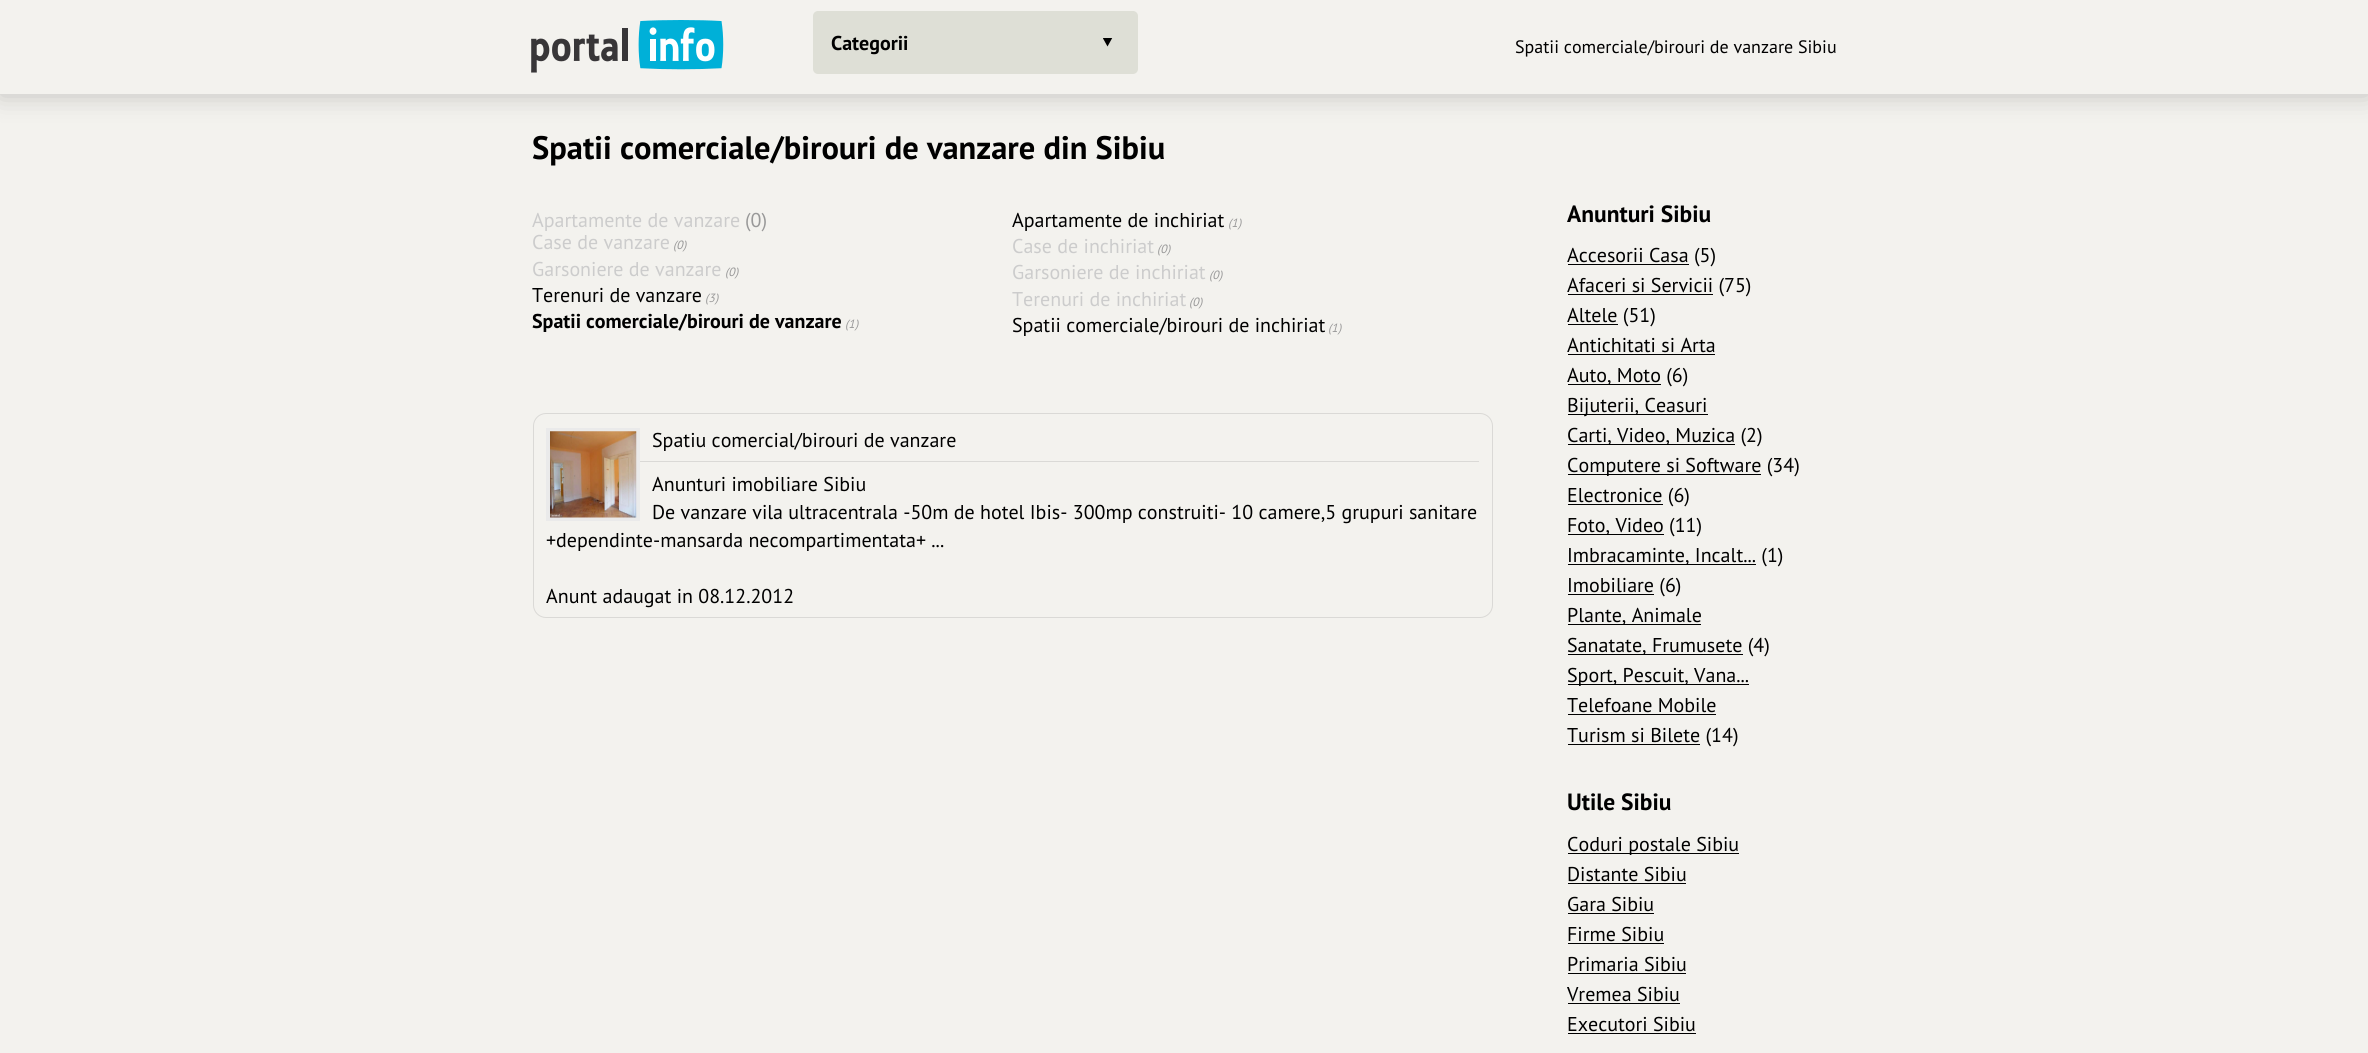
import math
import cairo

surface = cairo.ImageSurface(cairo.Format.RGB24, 2368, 1053)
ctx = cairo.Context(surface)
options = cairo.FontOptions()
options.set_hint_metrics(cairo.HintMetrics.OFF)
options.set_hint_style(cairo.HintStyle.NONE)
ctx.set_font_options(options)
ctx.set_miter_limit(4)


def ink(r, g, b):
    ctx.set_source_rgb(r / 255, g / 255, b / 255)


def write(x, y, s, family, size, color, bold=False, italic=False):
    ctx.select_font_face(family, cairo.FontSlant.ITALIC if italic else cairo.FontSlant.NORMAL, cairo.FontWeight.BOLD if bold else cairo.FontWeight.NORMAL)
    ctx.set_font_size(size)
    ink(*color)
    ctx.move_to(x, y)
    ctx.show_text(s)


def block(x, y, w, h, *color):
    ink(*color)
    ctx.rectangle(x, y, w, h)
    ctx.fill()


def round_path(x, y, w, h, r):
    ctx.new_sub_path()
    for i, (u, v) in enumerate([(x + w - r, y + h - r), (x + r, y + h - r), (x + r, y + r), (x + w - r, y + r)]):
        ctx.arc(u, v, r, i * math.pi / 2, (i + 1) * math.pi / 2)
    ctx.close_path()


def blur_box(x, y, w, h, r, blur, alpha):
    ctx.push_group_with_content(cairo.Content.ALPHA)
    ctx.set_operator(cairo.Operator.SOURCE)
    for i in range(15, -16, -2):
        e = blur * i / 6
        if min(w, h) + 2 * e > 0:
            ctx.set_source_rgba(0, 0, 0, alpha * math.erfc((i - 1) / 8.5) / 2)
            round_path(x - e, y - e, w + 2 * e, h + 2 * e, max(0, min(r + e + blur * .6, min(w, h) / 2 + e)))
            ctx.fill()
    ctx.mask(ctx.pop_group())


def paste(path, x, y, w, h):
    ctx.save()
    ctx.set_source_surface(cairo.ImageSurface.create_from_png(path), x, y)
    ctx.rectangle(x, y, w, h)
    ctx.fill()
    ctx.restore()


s1 = dict(family="PT Sans", size=20, color=(0, 0, 0), bold=True)
s2 = dict(family="PT Sans", size=18, color=(0, 0, 0))
s3 = dict(family="PT Sans", size=32.5, color=(0, 0, 0), bold=True)
s4 = dict(family="PT Sans", size=20, color=(204, 204, 204))
s5 = dict(family="PT Sans", size=20, color=(153, 153, 153))
s6 = dict(family="PT Sans", size=12, color=(153, 153, 153), italic=True)
s7 = dict(family="PT Sans", size=20, color=(0, 0, 0))
s8 = dict(family="PT Sans", size=23.5, color=(0, 0, 0), bold=True)

ink(243, 242, 238)
ctx.paint()
ink(0, 0, 0)
blur_box(0, 3, 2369, 93, 0, 12.5, 0.2)
block(0, 0, 2368, 94, 243, 242, 238)
paste("pic1.png", 531, 20, 193, 53)
ink(222, 223, 214)
round_path(813, 11, 325, 63, 5)
ctx.fill()
ctx.save()
ctx.rectangle(1103, 38, 10, 10)
ctx.clip()
ink(0, 0, 0)
ctx.new_path()
ctx.move_to(1102.5, 37.5)
ctx.line_to(1112.5, 37.5)
ctx.line_to(1107.5, 46.5)
ctx.close_path()
ctx.fill()
ctx.restore()
write(831, 50, "Categorii", **s1)
write(1515, 53, "Spatii comerciale/birouri de vanzare Sibiu", **s2)
write(532, 159, "Spatii comerciale/birouri de vanzare din Sibiu", **s3)
write(532, 227, "Apartamente de vanzare", **s4)
write(745, 227, "(0)", **s5)
write(532, 249, "Case de vanzare", **s4)
write(673, 249, "(0)", **s6)
write(532, 276, "Garsoniere de vanzare", **s4)
write(725, 276, "(0)", **s6)
write(532, 302, "Terenuri de vanzare", **s7)
write(705, 302, "(3)", **s6)
write(532, 328, "Spatii comerciale/birouri de vanzare", **s1)
write(845, 328, "(1)", **s6)
write(1012, 227, "Apartamente de inchiriat", **s7)
write(1228, 227, "(1)", **s6)
write(1012, 253, "Case de inchiriat", **s4)
write(1157, 253, "(0)", **s6)
write(1012, 279, "Garsoniere de inchiriat", **s4)
write(1209, 279, "(0)", **s6)
write(1012, 306, "Terenuri de inchiriat", **s4)
write(1189, 306, "(0)", **s6)
write(1012, 332, "Spatii comerciale/birouri de inchiriat", **s7)
write(1328, 332, "(1)", **s6)
round_path(533.5, 413.5, 959, 204, 12.5)
ink(218, 217, 214)
ctx.set_line_width(1)
ctx.stroke()
ctx.rectangle(548, 430, 90, 89)
ink(234, 234, 234)
ctx.set_line_width(4)
ctx.stroke()
paste("pic2.png", 550, 431, 87, 87)
block(640, 461, 839, 1, 218, 217, 214)
write(652, 447, "Spatiu comercial/birouri de vanzare", **s7)
write(652, 491, "Anunturi imobiliare Sibiu", **s7)
write(652, 519, "De vanzare vila ultracentrala -50m de hotel Ibis- 300mp construiti- 10 camere,5 grupuri sanitare", **s7)
write(546, 547, "+dependinte-mansarda necompartimentata+ ...", **s7)
write(546, 603, "Anunt adaugat in 08.12.2012", **s7)
write(1567, 222, "Anunturi Sibiu", **s8)
block(1568, 264, 121, 1, 0, 0, 0)
write(1567, 262, "Accesorii Casa (5)", **s7)
block(1568, 294, 145, 1, 0, 0, 0)
write(1567, 292, "Afaceri si Servicii (75)", **s7)
block(1568, 324, 50, 1, 0, 0, 0)
write(1567, 322, "Altele (51)", **s7)
write(1567, 352, "Antichitati si Arta", **s7)
block(1568, 354, 147, 1, 0, 0, 0)
block(1568, 384, 93, 1, 0, 0, 0)
write(1567, 382, "Auto, Moto (6)", **s7)
block(1568, 414, 140, 1, 0, 0, 0)
write(1567, 412, "Bijuterii, Ceasuri", **s7)
block(1568, 444, 167, 1, 0, 0, 0)
write(1567, 442, "Carti, Video, Muzica (2)", **s7)
block(1568, 474, 193, 1, 0, 0, 0)
write(1567, 472, "Computere si Software (34)", **s7)
block(1568, 504, 95, 1, 0, 0, 0)
write(1567, 502, "Electronice (6)", **s7)
block(1568, 534, 96, 1, 0, 0, 0)
write(1567, 532, "Foto, Video (11)", **s7)
block(1568, 564, 188, 1, 0, 0, 0)
write(1567, 562, "Imbracaminte, Incalt... (1)", **s7)
block(1568, 594, 86, 1, 0, 0, 0)
write(1567, 592, "Imobiliare (6)", **s7)
block(1568, 624, 133, 1, 0, 0, 0)
write(1567, 622, "Plante, Animale", **s7)
block(1568, 654, 175, 1, 0, 0, 0)
write(1567, 652, "Sanatate, Frumusete (4)", **s7)
block(1568, 684, 181, 1, 0, 0, 0)
write(1567, 682, "Sport, Pescuit, Vana...", **s7)
write(1567, 712, "Telefoane Mobile", **s7)
block(1568, 714, 148, 1, 0, 0, 0)
block(1568, 744, 132, 1, 0, 0, 0)
write(1567, 742, "Turism si Bilete (14)", **s7)
write(1567, 810, "Utile Sibiu", **s8)
block(1568, 853, 171, 1, 0, 0, 0)
write(1567, 851, "Coduri postale Sibiu", **s7)
write(1567, 881, "Distante Sibiu", **s7)
block(1568, 883, 118, 1, 0, 0, 0)
write(1567, 911, "Gara Sibiu", **s7)
block(1568, 913, 86, 1, 0, 0, 0)
write(1567, 941, "Firme Sibiu", **s7)
block(1568, 943, 96, 1, 0, 0, 0)
write(1567, 971, "Primaria Sibiu", **s7)
block(1568, 973, 118, 1, 0, 0, 0)
write(1567, 1001, "Vremea Sibiu", **s7)
block(1568, 1003, 112, 1, 0, 0, 0)
write(1567, 1031, "Executori Sibiu", **s7)
block(1568, 1033, 128, 1, 0, 0, 0)
surface.write_to_png("screenshot.png")
